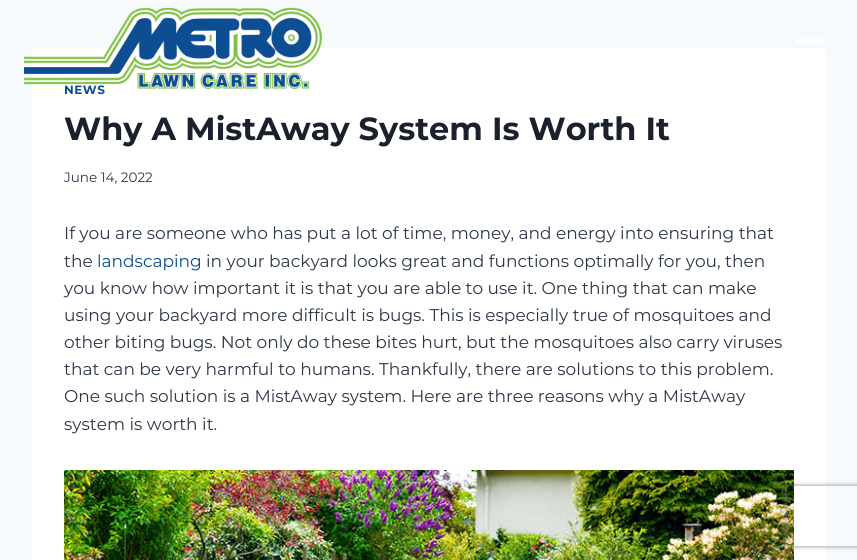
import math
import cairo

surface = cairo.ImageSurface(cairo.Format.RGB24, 857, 560)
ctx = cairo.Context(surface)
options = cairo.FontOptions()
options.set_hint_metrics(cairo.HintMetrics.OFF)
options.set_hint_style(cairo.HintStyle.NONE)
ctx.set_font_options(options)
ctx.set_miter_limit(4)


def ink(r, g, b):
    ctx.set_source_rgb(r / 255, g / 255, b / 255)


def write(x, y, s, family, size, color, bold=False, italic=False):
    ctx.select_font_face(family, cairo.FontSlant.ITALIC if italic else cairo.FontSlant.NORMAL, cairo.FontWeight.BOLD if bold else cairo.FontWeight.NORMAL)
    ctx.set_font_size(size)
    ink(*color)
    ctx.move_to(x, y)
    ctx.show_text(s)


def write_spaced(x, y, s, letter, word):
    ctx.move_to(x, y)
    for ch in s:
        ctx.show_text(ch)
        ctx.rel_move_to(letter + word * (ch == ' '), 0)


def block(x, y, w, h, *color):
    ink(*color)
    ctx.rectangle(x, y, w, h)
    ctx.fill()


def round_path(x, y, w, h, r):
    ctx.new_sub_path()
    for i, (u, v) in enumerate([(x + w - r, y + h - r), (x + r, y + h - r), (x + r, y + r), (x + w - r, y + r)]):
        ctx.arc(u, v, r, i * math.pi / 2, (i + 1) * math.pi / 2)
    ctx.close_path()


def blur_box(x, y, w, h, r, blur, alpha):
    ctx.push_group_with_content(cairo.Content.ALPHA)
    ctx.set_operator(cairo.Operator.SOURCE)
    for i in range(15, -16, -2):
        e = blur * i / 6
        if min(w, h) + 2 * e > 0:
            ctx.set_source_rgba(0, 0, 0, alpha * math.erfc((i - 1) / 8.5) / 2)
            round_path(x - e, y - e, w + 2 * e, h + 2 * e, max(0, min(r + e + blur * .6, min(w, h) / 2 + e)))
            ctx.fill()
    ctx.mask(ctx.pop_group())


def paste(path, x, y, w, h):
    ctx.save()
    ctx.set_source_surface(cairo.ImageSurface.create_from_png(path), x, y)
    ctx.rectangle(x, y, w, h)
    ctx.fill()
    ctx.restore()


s1 = dict(family="Montserrat", size=32, color=(26, 32, 44), bold=True)
s2 = dict(family="Montserrat", size=13.5, color=(45, 55, 72))
s3 = dict(family="Montserrat", size=17, color=(45, 55, 72))
s4 = dict(family="Montserrat", size=17, color=(12, 78, 145))

ink(247, 250, 252)
ctx.paint()
ink(255, 255, 255)
round_path(32, 48, 794, 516, 4)
ctx.fill()
ctx.select_font_face("Montserrat", cairo.FontSlant.NORMAL, cairo.FontWeight.BOLD)
ctx.set_font_size(12)
ink(12, 78, 145)
write_spaced(64, 94, "NEWS", 0.5, 0)
paste("pic1.png", 24, 7, 298, 82)
block(797, 39, 26, 5, 255, 255, 255)
write(64, 140, "Why A MistAway System Is Worth It", **s1)
write(64, 182, "June 14, 2022", **s2)
write(64, 239, "If you are someone who has put a lot of time, money, and energy into ensuring that", **s3)
write(64, 267, "the", **s3)
write(97, 267, "landscaping", **s4)
write(206, 267, "in your backyard looks great and functions optimally for you, then", **s3)
write(64, 294, "you know how important it is that you are able to use it. One thing that can make", **s3)
write(64, 321, "using your backyard more difficult is bugs. This is especially true of mosquitoes and", **s3)
write(64, 348, "other biting bugs. Not only do these bites hurt, but the mosquitoes also carry viruses", **s3)
write(64, 375, "that can be very harmful to humans. Thankfully, there are solutions to this problem.", **s3)
write(64, 402, "One such solution is a MistAway system. Here are three reasons why a MistAway", **s3)
write(64, 430, "system is worth it.", **s3)
paste("pic2.png", 64, 470, 730, 90)
ctx.save()
ctx.set_fill_rule(cairo.FillRule.EVEN_ODD)
ctx.new_path()
ctx.move_to(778, 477)
ctx.line_to(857, 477)
ctx.line_to(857, 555)
ctx.line_to(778, 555)
ctx.close_path()
ctx.move_to(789, 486)
ctx.line_to(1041, 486)
ctx.curve_to(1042, 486, 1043, 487, 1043, 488)
ctx.line_to(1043, 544)
ctx.curve_to(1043, 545, 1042, 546, 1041, 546)
ctx.line_to(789, 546)
ctx.curve_to(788, 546, 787, 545, 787, 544)
ctx.line_to(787, 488)
ctx.curve_to(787, 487, 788, 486, 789, 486)
ctx.close_path()
ctx.clip()
ink(128, 128, 128)
blur_box(787, 486, 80, 60, 2, 2.5, 1)
ctx.restore()
surface.write_to_png("screenshot.png")
